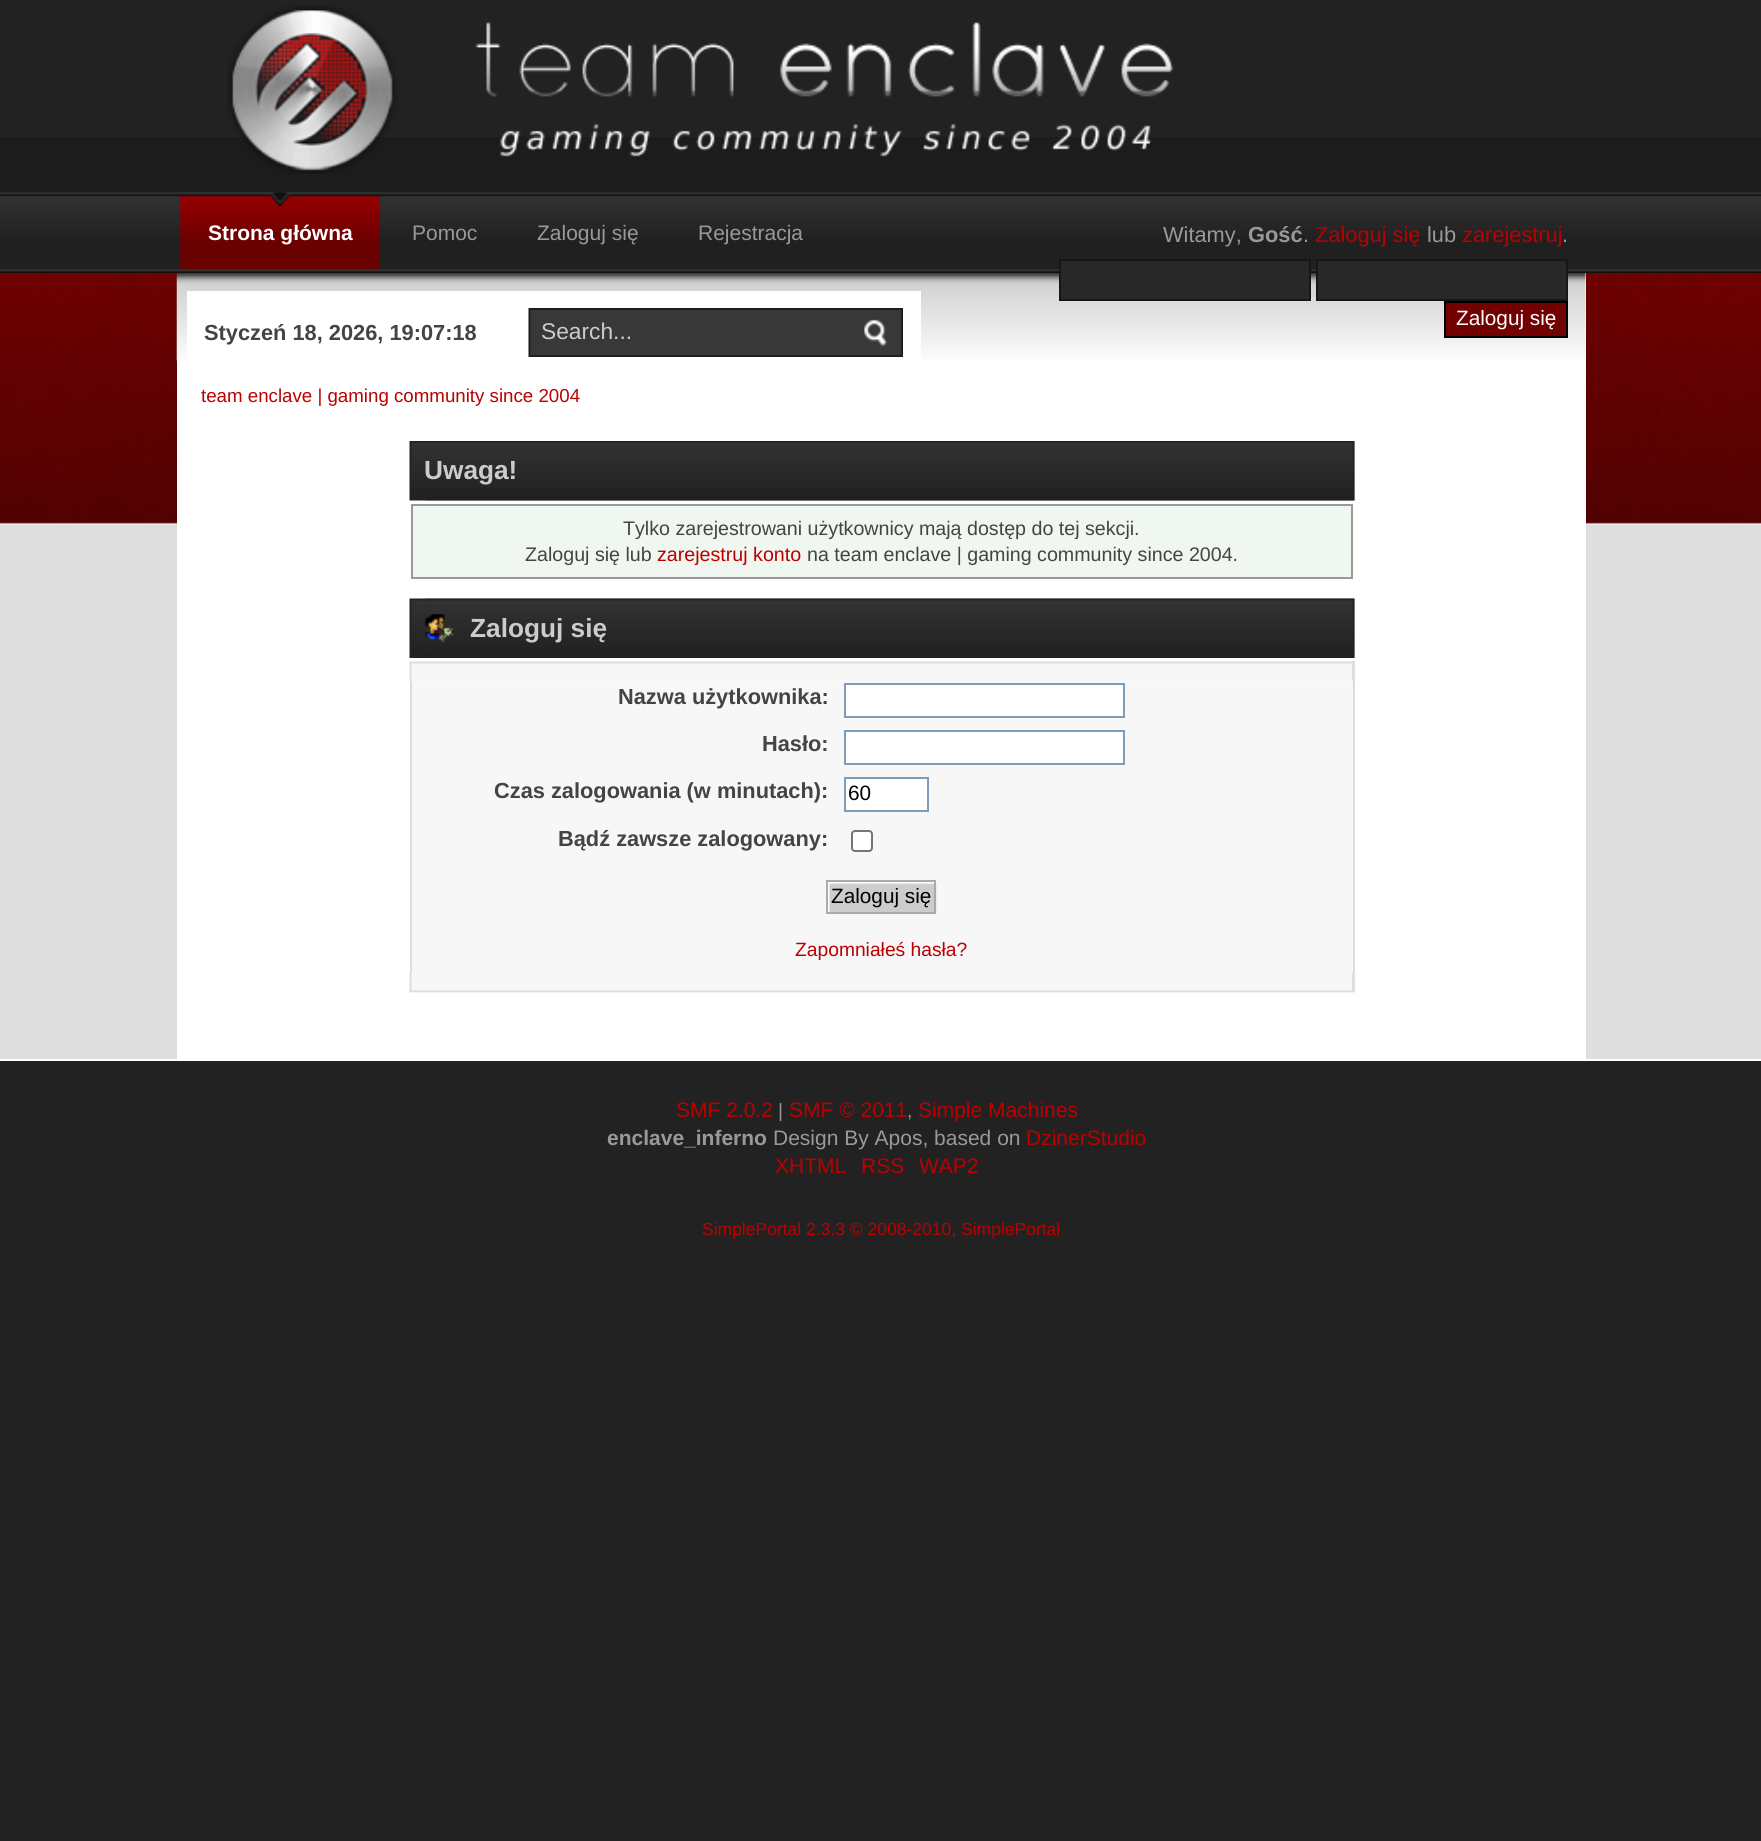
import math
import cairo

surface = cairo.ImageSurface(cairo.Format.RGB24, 1761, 1841)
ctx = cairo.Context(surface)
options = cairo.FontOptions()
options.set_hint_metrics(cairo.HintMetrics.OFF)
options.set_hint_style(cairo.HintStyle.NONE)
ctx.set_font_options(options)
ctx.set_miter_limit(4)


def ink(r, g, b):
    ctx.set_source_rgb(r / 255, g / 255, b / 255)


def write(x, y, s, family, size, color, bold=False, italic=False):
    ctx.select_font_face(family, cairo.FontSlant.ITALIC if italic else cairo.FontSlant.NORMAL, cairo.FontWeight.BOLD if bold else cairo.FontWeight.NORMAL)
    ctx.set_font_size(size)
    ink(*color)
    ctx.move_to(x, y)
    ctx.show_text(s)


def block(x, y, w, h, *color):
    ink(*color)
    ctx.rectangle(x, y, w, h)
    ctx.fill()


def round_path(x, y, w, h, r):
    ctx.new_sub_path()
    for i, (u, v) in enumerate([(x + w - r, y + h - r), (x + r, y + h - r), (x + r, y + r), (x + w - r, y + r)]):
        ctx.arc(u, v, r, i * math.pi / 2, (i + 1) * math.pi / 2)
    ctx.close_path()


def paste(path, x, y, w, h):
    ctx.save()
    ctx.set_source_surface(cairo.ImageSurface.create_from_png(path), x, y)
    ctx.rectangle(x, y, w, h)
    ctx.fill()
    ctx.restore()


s1 = dict(family="Liberation Sans", size=21, color=(255, 255, 255), bold=True)
s2 = dict(family="Liberation Sans", size=21, color=(153, 153, 153))
s3 = dict(family="Liberation Sans", size=21.8, color=(153, 153, 153))
s4 = dict(family="Liberation Sans", size=21.8, color=(153, 153, 153), bold=True)
s5 = dict(family="Liberation Sans", size=21.8, color=(187, 0, 0))
s6 = dict(family="Liberation Sans", size=20.75, color=(255, 255, 255))
s7 = dict(family="Liberation Sans", size=21.8, color=(68, 68, 68), bold=True)
s8 = dict(family="Liberation Sans", size=22.75, color=(204, 204, 204))
s9 = dict(family="Liberation Sans", size=18.7, color=(187, 0, 0))
s10 = dict(family="Liberation Sans", size=26.25, color=(204, 204, 204), bold=True)
s11 = dict(family="Liberation Sans", size=19.65, color=(68, 68, 68))
s12 = dict(family="Liberation Sans", size=19.65, color=(187, 0, 0))
s13 = dict(family="Liberation Sans", size=20.75, color=(0, 0, 0))
s14 = dict(family="Liberation Sans", size=19.25, color=(187, 0, 0))
s15 = dict(family="Liberation Sans", size=21, color=(187, 0, 0))
s16 = dict(family="Liberation Sans", size=19.25, color=(153, 153, 153))
s17 = dict(family="Liberation Sans", size=21, color=(153, 153, 153), bold=True)
s18 = dict(family="Liberation Sans", size=17.5, color=(187, 0, 0))

ink(34, 34, 34)
ctx.paint()
block(0, 137, 1761, 56, 28, 28, 28)
paste("pic1.png", 0, 192, 1761, 81)
paste("pic2.png", 180, 192, 200, 78)
write(208, 240, "Strona główna", **s1)
write(412, 240, "Pomoc", **s2)
write(537, 240, "Zaloguj się", **s2)
write(698, 240, "Rejestracja", **s2)
paste("pic3.png", 227, 5, 946, 169)
write(1163, 242, "Witamy,", **s3)
write(1248, 242, "Gość", **s4)
write(1303, 242, ".", **s3)
write(1315, 242, "Zaloguj się", **s5)
write(1427, 242, "lub", **s3)
write(1462, 242, "zarejestruj", **s5)
write(1562, 242, ".", **s3)
paste("pic4.png", 0, 273, 1761, 252)
block(0, 525, 1761, 534, 222, 222, 222)
block(177, 273, 1409, 786, 255, 255, 255)
paste("pic5.png", 176, 273, 1410, 88)
ink(40, 40, 40)
ctx.rectangle(1060, 260, 250, 40)
ctx.fill_preserve()
ink(23, 23, 23)
ctx.stroke()
ink(40, 40, 40)
ctx.rectangle(1317, 260, 250, 40)
ctx.fill_preserve()
ink(23, 23, 23)
ctx.stroke()
ink(114, 1, 1)
ctx.rectangle(1445, 302, 122, 35)
ctx.fill_preserve()
ink(0, 0, 0)
ctx.stroke()
write(1456, 325, "Zaloguj się", **s6)
block(187, 291, 734, 69, 255, 255, 255)
write(204, 340, "Styczeń 18, 2026, 19:07:18", **s7)
paste("pic6.png", 528, 308, 375, 49)
write(541, 339, "Search...", **s8)
write(201, 402, "team enclave | gaming community since 2004", **s9)
paste("pic7.png", 409, 441, 946, 60)
paste("pic8.png", 425, 441, 930, 60)
write(424, 479, "Uwaga!", **s10)
ink(240, 246, 240)
ctx.rectangle(412, 505, 940, 73)
ctx.fill_preserve()
ink(153, 153, 153)
ctx.stroke()
write(623, 535, "Tylko zarejestrowani użytkownicy mają dostęp do tej sekcji.", **s11)
write(525, 561, "Zaloguj się lub", **s11)
write(657, 561, "zarejestruj konto", **s12)
write(807, 561, "na team enclave | gaming community since 2004.", **s11)
paste("pic9.png", 409, 598, 946, 60)
paste("pic10.png", 425, 598, 930, 60)
paste("pic11.png", 425, 614, 29, 29)
write(470, 637, "Zaloguj się", **s10)
paste("pic12.png", 409, 661, 943, 20)
block(1352, 661, 3, 20, 223, 223, 223)
block(412, 681, 941, 292, 247, 247, 247)
block(1353, 681, 2, 292, 220, 220, 220)
block(410, 681, 2, 292, 220, 220, 220)
write(618, 704, "Nazwa użytkownika:", **s7)
ink(255, 255, 255)
ctx.rectangle(845, 684, 279, 33)
ctx.fill_preserve()
ink(127, 157, 185)
ctx.stroke()
write(762, 751, "Hasło:", **s7)
ink(255, 255, 255)
ctx.rectangle(845, 731, 279, 33)
ctx.fill_preserve()
ink(127, 157, 185)
ctx.stroke()
write(494, 798, "Czas zalogowania (w minutach):", **s7)
ink(255, 255, 255)
ctx.rectangle(845, 778, 83, 33)
ctx.fill_preserve()
ink(127, 157, 185)
ctx.stroke()
write(848, 800, "60", **s13)
write(558, 846, "Bądź zawsze zalogowany:", **s7)
ink(255, 255, 255)
round_path(852, 831, 20, 20, 3)
ctx.fill_preserve()
ink(118, 118, 118)
ctx.stroke()
paste("pic13.png", 828, 882, 109, 32)
ctx.rectangle(827, 881, 108, 32)
ink(170, 170, 170)
ctx.stroke()
write(831, 903, "Zaloguj się", **s13)
write(795, 956, "Zapomniałeś hasła?", **s14)
paste("pic14.png", 409, 973, 946, 20)
block(1352, 973, 3, 19, 223, 223, 223)
block(0, 1059, 1761, 2, 255, 255, 255)
write(676, 1117, "SMF 2.0.2", **s15)
write(778, 1117, "|", **s16)
write(789, 1117, "SMF © 2011", **s15)
write(907, 1117, ",", **s16)
write(918, 1117, "Simple Machines", **s15)
write(607, 1145, "enclave_inferno", **s17)
write(773, 1145, "Design By Apos, based on", **s2)
write(1026, 1145, "DzinerStudio", **s15)
write(775, 1173, "XHTML", **s15)
write(861, 1173, "RSS", **s15)
write(919, 1173, "WAP2", **s15)
write(702, 1235, "SimplePortal 2.3.3 © 2008-2010, SimplePortal", **s18)
surface.write_to_png("screenshot.png")
